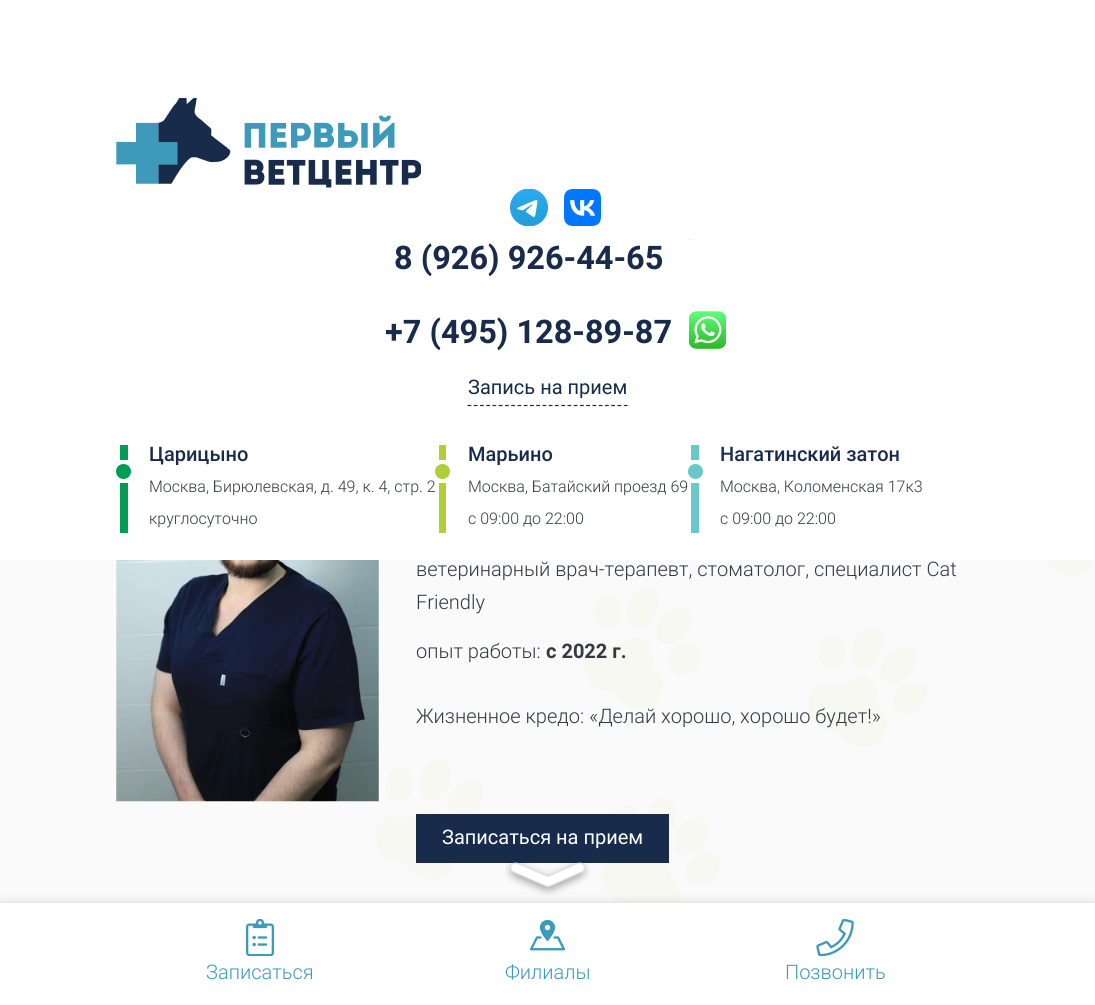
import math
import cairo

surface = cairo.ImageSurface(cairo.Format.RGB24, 1095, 1005)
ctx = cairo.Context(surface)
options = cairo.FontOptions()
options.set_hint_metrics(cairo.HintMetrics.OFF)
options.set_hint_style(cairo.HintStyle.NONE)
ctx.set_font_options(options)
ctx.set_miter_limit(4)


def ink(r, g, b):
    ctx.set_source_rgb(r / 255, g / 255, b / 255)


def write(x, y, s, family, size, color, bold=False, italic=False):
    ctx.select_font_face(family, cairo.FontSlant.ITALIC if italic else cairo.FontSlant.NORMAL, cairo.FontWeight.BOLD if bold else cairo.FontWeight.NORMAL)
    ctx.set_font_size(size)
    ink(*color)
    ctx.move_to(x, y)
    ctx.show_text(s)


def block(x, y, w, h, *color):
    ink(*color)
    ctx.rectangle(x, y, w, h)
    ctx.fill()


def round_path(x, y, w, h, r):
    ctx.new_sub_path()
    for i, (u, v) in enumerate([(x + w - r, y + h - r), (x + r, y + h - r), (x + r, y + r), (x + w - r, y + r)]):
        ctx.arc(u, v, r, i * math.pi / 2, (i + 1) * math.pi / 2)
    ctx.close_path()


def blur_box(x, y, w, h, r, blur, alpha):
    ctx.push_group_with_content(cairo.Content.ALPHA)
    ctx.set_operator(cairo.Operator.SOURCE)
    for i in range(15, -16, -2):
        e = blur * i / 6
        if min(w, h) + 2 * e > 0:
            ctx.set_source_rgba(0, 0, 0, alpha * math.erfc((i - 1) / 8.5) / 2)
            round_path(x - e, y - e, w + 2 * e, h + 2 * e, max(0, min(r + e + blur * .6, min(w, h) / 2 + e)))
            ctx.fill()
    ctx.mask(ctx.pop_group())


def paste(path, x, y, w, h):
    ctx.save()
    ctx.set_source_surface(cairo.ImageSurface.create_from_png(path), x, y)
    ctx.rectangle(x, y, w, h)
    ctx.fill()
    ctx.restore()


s1 = dict(family="Roboto", size=32.5, color=(24, 43, 75), bold=True)
s2 = dict(family="Roboto", size=20, color=(24, 43, 75))
s3 = dict(family="Roboto Medium", size=20, color=(24, 43, 75))
s4 = dict(family="Roboto Light", size=16, color=(52, 58, 64))
s5 = dict(family="Roboto Light", size=20, color=(52, 58, 64))
s6 = dict(family="Roboto", size=20, color=(52, 58, 64), bold=True)
s7 = dict(family="Roboto", size=20, color=(255, 255, 255))
s8 = dict(family="Roboto Light", size=20, color=(61, 154, 187))

ink(250, 250, 250)
ctx.paint()
block(0, 0, 1095, 560, 255, 255, 255)
paste("pic1.png", 116, 98, 305, 90)
paste("pic2.png", 510, 189, 38, 37)
paste("pic3.png", 564, 189, 37, 37)
paste("pic4.png", 686, 239, 8, 1)
write(394, 269, "8 (926) 926-44-65", **s1)
write(385, 343, "+7 (495) 128-89-87", **s1)
paste("pic5.png", 689, 311, 37, 38)
ctx.new_path()
ctx.move_to(467.5, 405.5)
ctx.line_to(627.5, 405.5)
ctx.set_line_width(1.2)
ctx.set_dash([3.75, 2.5])
ctx.stroke()
write(468, 394, "Запись на прием", **s2)
ink(2, 156, 84)
ctx.new_path()
ctx.arc(123.5, 471.5, 7.5, 0, 2 * math.pi)
ctx.fill()
block(120, 445, 8, 15, 2, 156, 84)
block(120, 483, 8, 50, 2, 156, 84)
write(149, 461, "Царицыно", **s3)
write(149, 492, "Москва, Бирюлевская, д. 49, к. 4, стр. 2", **s4)
write(149, 524, "круглосуточно", **s4)
ink(175, 207, 56)
ctx.new_path()
ctx.arc(442.5, 471.5, 7.5, 0, 2 * math.pi)
ctx.fill()
block(439, 445, 7, 15, 175, 207, 56)
block(439, 483, 7, 50, 175, 207, 56)
write(468, 461, "Марьино", **s3)
write(468, 492, "Москва, Батайский проезд 69", **s4)
write(468, 524, "c 09:00 до 22:00", **s4)
ink(106, 201, 200)
ctx.new_path()
ctx.arc(695.5, 471.5, 7.5, 0, 2 * math.pi)
ctx.fill()
block(691, 445, 8, 15, 106, 201, 200)
block(691, 483, 8, 50, 106, 201, 200)
write(720, 461, "Нагатинский затон", **s3)
write(720, 492, "Москва, Коломенская 17к3", **s4)
write(720, 524, "c 09:00 до 22:00", **s4)
paste("pic6.png", 375, 560, 720, 343)
paste("pic7.png", 116, 560, 263, 242)
write(416, 576, "ветеринарный врач-терапевт, стоматолог, специалист Cat", **s5)
write(416, 609, "Friendly", **s5)
write(416, 658, "опыт работы:", **s5)
write(546, 658, "с 2022 г.", **s6)
write(416, 723, "Жизненное кредо: «Делай хорошо, хорошо будет!»", **s5)
block(416, 814, 253, 49, 24, 43, 75)
write(442, 844, "Записаться на прием", **s7)
ink(34, 60, 80)
blur_box(0, 903, 1095, 102, 0, 5, 0.2)
paste("pic8.png", 505, 862, 85, 34)
block(0, 903, 1095, 102, 255, 255, 255)
paste("pic9.png", 245, 919, 30, 37)
write(206, 979, "Записаться", **s8)
paste("pic10.png", 530, 919, 36, 32)
write(505, 979, "Филиалы", **s8)
paste("pic11.png", 816, 919, 38, 37)
write(785, 979, "Позвонить", **s8)
surface.write_to_png("screenshot.png")
